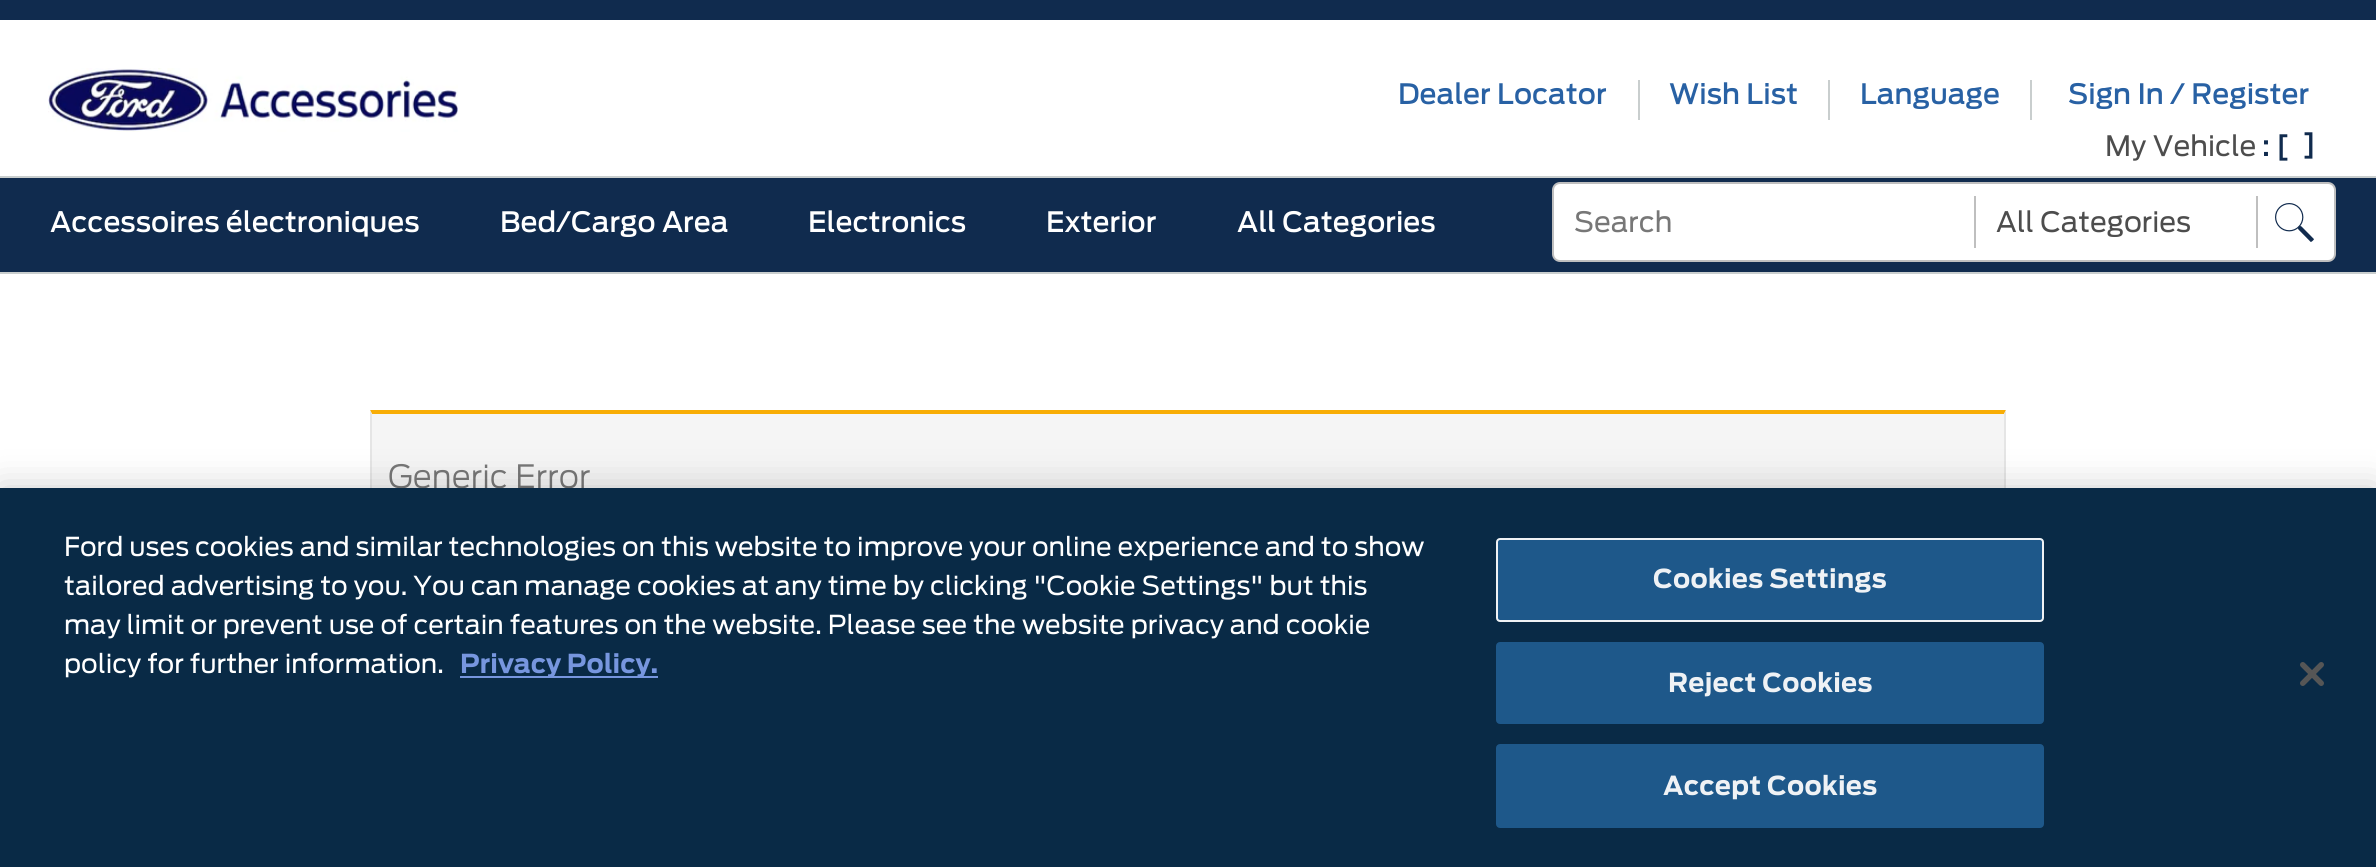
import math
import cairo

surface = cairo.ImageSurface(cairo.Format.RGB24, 2376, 867)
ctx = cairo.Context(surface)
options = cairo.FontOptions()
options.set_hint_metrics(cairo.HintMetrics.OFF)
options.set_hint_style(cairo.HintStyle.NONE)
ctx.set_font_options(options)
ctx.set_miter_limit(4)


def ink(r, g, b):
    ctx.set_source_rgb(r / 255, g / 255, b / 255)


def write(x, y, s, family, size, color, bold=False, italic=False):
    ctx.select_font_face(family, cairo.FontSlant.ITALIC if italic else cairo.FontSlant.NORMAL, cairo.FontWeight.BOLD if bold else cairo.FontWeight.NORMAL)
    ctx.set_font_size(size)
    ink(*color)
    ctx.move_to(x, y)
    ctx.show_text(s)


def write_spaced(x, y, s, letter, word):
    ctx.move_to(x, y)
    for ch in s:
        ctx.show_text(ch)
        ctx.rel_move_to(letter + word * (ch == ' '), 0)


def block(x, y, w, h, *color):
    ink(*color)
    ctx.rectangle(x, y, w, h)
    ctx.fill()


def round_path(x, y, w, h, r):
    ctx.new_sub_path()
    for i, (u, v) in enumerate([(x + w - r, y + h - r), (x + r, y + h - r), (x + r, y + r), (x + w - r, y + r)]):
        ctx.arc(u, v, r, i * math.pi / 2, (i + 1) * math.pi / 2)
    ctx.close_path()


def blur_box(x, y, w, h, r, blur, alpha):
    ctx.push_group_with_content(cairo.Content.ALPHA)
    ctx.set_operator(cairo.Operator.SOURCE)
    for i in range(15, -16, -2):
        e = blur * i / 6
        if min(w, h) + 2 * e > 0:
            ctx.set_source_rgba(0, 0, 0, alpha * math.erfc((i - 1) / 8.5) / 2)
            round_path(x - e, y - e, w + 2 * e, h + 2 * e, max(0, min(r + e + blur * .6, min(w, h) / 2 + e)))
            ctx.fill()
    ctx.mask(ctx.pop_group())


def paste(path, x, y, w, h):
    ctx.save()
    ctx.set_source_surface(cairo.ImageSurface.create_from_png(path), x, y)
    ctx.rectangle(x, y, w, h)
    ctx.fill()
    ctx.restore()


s1 = dict(family="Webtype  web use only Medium", size=28, color=(40, 97, 164))
s2 = dict(family="Webtype  web use only", size=28, color=(77, 77, 77))
s3 = dict(family="Webtype  web use only Medium", size=28, color=(16, 43, 78))
s4 = dict(family="Webtype  web use only Medium", size=28, color=(255, 255, 255))
s5 = dict(family="Webtype  web use only", size=28, color=(119, 119, 119))
s6 = dict(family="Webtype  web use only Light", size=32, color=(119, 119, 119))
s7 = dict(family="Webtype  web use only", size=26.02, color=(255, 255, 255))
s8 = dict(family="Webtype  web use only", size=26.02, color=(119, 150, 223), bold=True)

ink(255, 255, 255)
ctx.paint()
block(0, 0, 2376, 20, 16, 43, 78)
paste("pic1.png", 48, 68, 410, 64)
block(1638, 80, 2, 40, 201, 206, 206)
write(1398, 104, "Dealer Locator", **s1)
block(1828, 80, 2, 40, 201, 206, 206)
write(1669, 104, "Wish List", **s1)
block(2030, 80, 2, 40, 201, 206, 206)
write(1860, 104, "Language", **s1)
write(2068, 104, "Sign In / Register", **s1)
write(2105, 156, "My Vehicle", **s2)
write(2262, 156, ": [", **s3)
write(2302, 154, "]", **s3)
block(0, 178, 2376, 94, 16, 43, 78)
block(0, 176, 2376, 2, 201, 206, 206)
block(0, 272, 2376, 2, 201, 206, 206)
write(50, 232, "Accessoires électroniques", **s4)
write(500, 232, "Bed/Cargo Area", **s4)
write(808, 232, "Electronics", **s4)
write(1046, 232, "Exterior", **s4)
write(1237, 232, "All Categories", **s4)
round_path(1553, 183, 782, 78, 7)
ctx.fill_preserve()
ink(191, 191, 191)
ctx.stroke()
write(1574, 232, "Search", **s5)
block(2256, 196, 2, 52, 191, 191, 191)
block(1974, 196, 2, 52, 191, 191, 191)
write(1996, 232, "All Categories", **s2)
paste("pic2.png", 2275, 203, 39, 39)
block(372, 414, 1632, 74, 245, 245, 245)
ink(248, 173, 5)
ctx.new_path()
ctx.move_to(370, 410)
ctx.line_to(2006, 410)
ctx.line_to(2004, 414)
ctx.line_to(372, 414)
ctx.close_path()
ctx.fill()
ink(229, 229, 229)
ctx.new_path()
ctx.move_to(2006, 410)
ctx.line_to(2006, 542)
ctx.line_to(2004, 542)
ctx.line_to(2004, 414)
ctx.close_path()
ctx.fill()
ctx.new_path()
ctx.move_to(370, 542)
ctx.line_to(370, 410)
ctx.line_to(372, 414)
ctx.line_to(372, 542)
ctx.close_path()
ctx.fill()
write(388, 488, "Generic Error", **s6)
ink(0, 0, 0)
blur_box(0, 488, 2376, 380, 0, 18, 0.2)
block(0, 488, 2376, 379, 9, 42, 70)
write(64, 556, "Ford uses cookies and similar technologies on this website to improve your online experience and to show", **s7)
write(64, 595, "tailored advertising to you. You can manage cookies at any time by clicking \"Cookie Settings\" but this", **s7)
write(64, 634, "may limit or prevent use of certain features on the website. Please see the website privacy and cookie", **s7)
write(64, 673, "policy for further information.", **s7)
block(460, 676, 198, 2, 119, 150, 223)
write(460, 673, "Privacy Policy.", **s8)
ink(30, 88, 138)
round_path(1497, 539, 546, 82, 3)
ctx.fill_preserve()
ink(239, 242, 245)
ctx.stroke()
write_spaced(1653, 588, "Cookies Settings", 0.25, 0)
ink(30, 88, 138)
round_path(1497, 643, 546, 80, 3)
ctx.fill_preserve()
ctx.stroke()
ink(239, 242, 245)
write_spaced(1668, 692, "Reject Cookies", 0.25, 0)
ink(30, 88, 138)
round_path(1497, 745, 546, 82, 3)
ctx.fill_preserve()
ctx.stroke()
ink(239, 242, 245)
write_spaced(1663, 795, "Accept Cookies", 0.25, 0)
paste("pic3.png", 2300, 662, 24, 24)
surface.write_to_png("screenshot.png")
